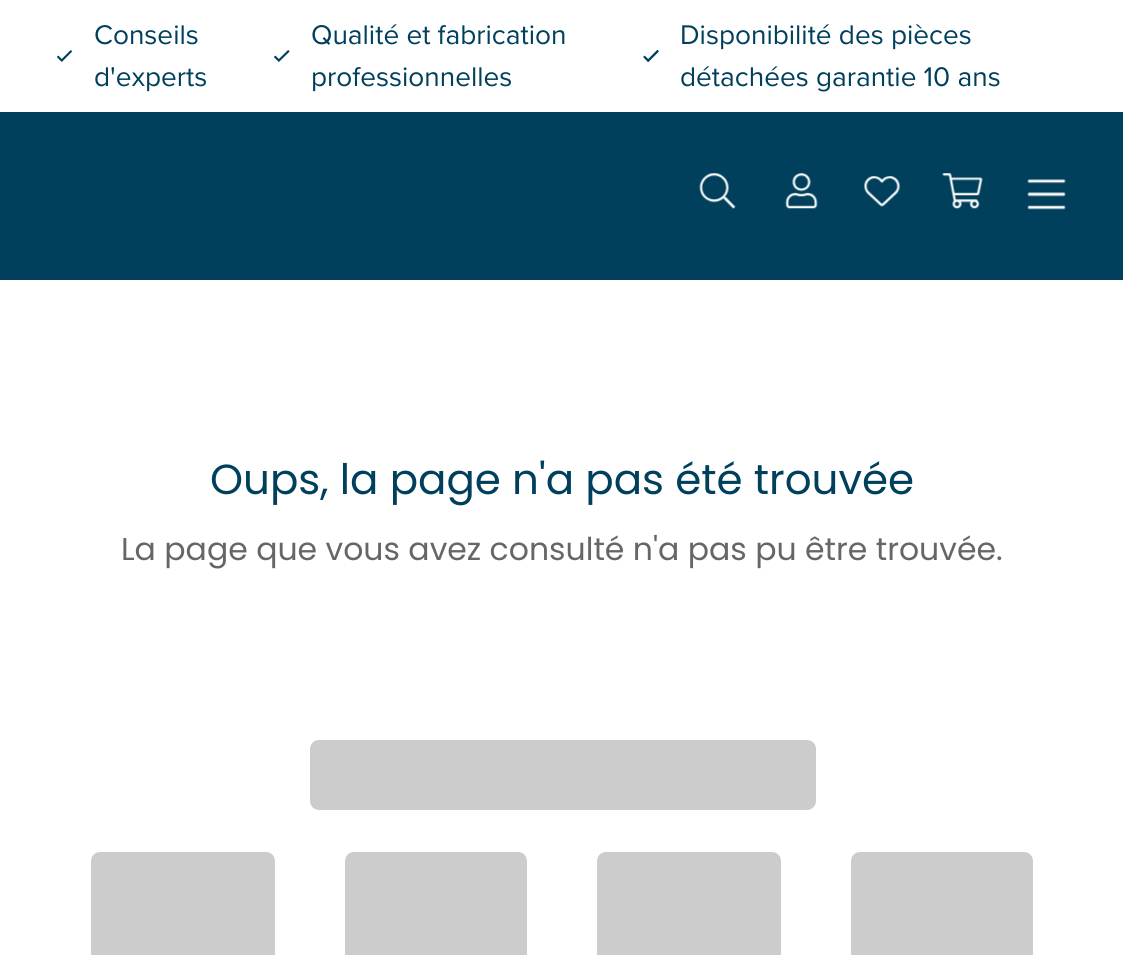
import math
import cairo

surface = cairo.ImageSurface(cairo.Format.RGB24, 1123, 955)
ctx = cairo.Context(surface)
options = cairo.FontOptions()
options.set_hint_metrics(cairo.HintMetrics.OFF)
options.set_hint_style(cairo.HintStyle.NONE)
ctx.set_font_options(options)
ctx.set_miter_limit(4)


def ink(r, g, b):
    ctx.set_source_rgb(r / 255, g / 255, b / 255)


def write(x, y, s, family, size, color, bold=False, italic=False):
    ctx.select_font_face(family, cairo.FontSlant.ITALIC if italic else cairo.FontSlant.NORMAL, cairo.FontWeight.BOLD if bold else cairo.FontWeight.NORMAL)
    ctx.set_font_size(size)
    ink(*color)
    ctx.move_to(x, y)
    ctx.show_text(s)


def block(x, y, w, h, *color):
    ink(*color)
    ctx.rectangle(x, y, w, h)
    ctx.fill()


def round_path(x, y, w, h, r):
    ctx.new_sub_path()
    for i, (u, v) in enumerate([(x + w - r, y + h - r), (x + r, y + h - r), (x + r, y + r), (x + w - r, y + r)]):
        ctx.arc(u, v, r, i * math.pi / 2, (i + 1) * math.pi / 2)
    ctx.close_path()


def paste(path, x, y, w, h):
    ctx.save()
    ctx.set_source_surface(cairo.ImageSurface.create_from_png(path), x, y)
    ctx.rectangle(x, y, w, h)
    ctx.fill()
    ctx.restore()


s1 = dict(family="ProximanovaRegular", size=28, color=(0, 64, 92))
s2 = dict(family="Poppins", size=42, color=(0, 64, 92))
s3 = dict(family="Poppins", size=31.5, color=(102, 102, 102))

ink(255, 255, 255)
ctx.paint()
paste("pic1.png", 57, 50, 15, 12)
write(94, 44, "Conseils", **s1)
write(94, 86, "d'experts", **s1)
paste("pic2.png", 274, 50, 16, 12)
write(311, 44, "Qualité et fabrication", **s1)
write(311, 86, "professionnelles", **s1)
paste("pic3.png", 643, 50, 16, 12)
write(680, 44, "Disponibilité des pièces", **s1)
write(680, 86, "détachées garantie 10 ans", **s1)
block(0, 112, 1123, 168, 0, 64, 92)
paste("pic4.png", 699, 173, 37, 36)
paste("pic5.png", 785, 173, 33, 36)
paste("pic6.png", 864, 176, 36, 31)
paste("pic7.png", 942, 173, 41, 36)
paste("pic8.png", 1027, 179, 39, 31)
write(210, 494, "Oups, la page n'a pas été trouvée", **s2)
write(121, 560, "La page que vous avez consulté n'a pas pu être trouvée.", **s3)
ink(204, 204, 204)
round_path(310, 740, 506, 70, 9)
ctx.fill()
round_path(91, 852, 184, 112, 9)
ctx.fill()
round_path(345, 852, 182, 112, 9)
ctx.fill()
round_path(597, 852, 184, 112, 9)
ctx.fill()
round_path(851, 852, 182, 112, 9)
ctx.fill()
surface.write_to_png("screenshot.png")
